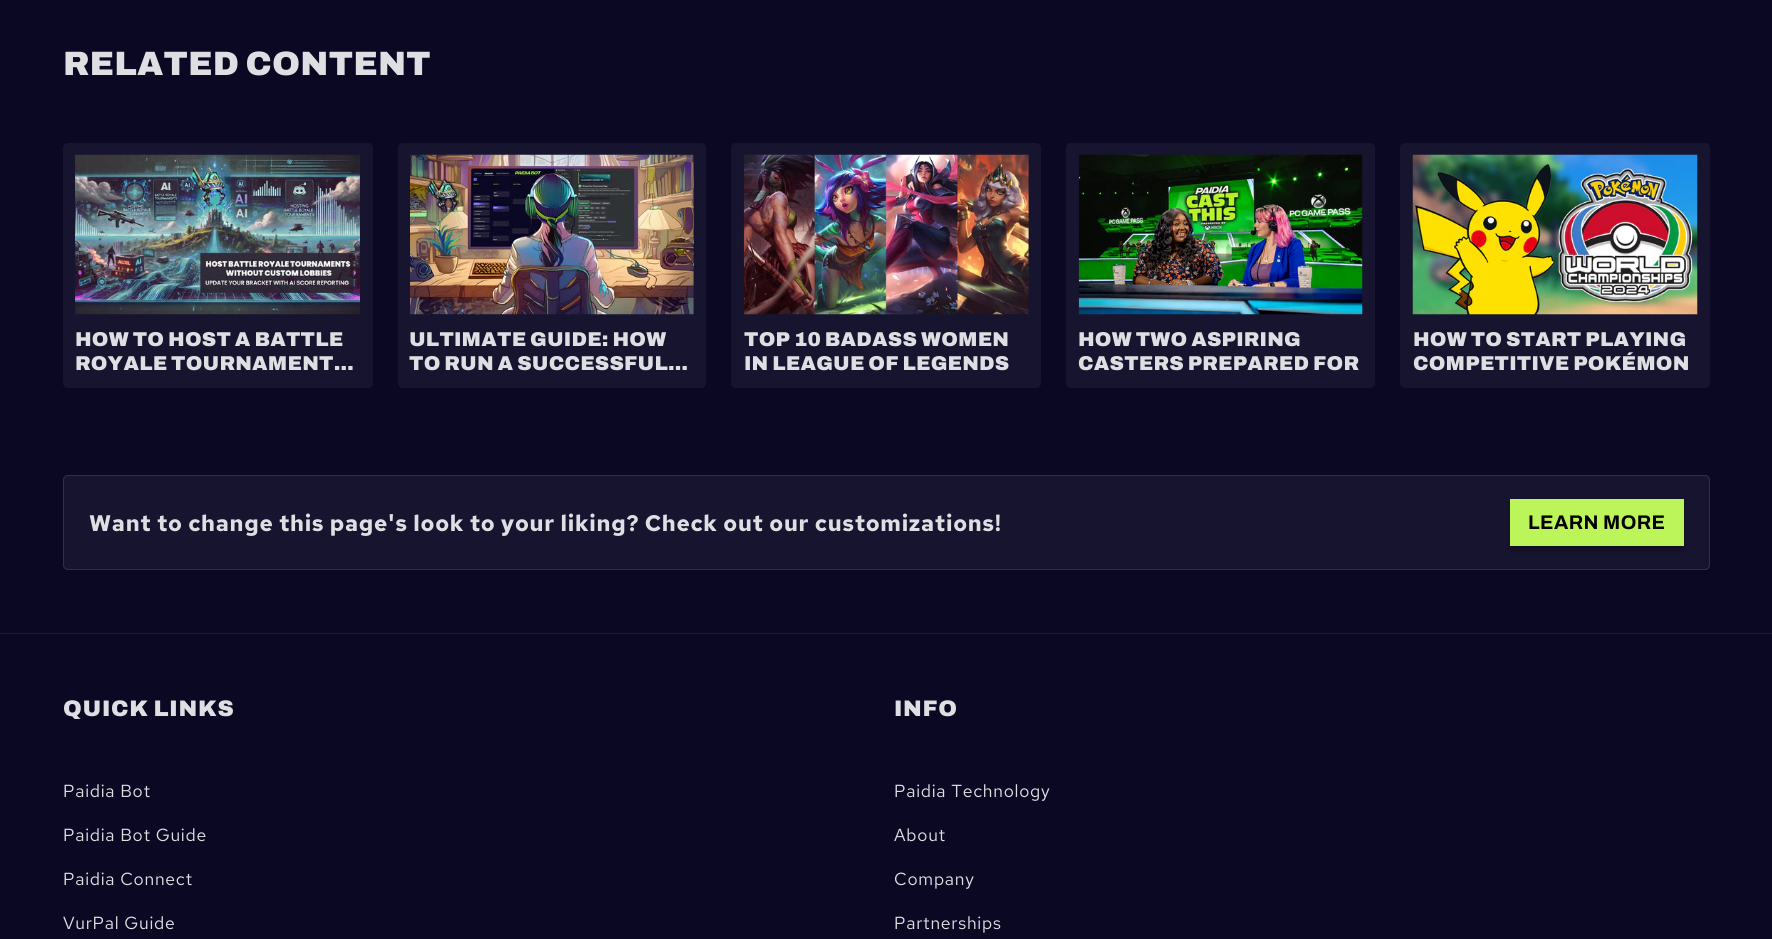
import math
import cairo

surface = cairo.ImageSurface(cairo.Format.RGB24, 1772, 939)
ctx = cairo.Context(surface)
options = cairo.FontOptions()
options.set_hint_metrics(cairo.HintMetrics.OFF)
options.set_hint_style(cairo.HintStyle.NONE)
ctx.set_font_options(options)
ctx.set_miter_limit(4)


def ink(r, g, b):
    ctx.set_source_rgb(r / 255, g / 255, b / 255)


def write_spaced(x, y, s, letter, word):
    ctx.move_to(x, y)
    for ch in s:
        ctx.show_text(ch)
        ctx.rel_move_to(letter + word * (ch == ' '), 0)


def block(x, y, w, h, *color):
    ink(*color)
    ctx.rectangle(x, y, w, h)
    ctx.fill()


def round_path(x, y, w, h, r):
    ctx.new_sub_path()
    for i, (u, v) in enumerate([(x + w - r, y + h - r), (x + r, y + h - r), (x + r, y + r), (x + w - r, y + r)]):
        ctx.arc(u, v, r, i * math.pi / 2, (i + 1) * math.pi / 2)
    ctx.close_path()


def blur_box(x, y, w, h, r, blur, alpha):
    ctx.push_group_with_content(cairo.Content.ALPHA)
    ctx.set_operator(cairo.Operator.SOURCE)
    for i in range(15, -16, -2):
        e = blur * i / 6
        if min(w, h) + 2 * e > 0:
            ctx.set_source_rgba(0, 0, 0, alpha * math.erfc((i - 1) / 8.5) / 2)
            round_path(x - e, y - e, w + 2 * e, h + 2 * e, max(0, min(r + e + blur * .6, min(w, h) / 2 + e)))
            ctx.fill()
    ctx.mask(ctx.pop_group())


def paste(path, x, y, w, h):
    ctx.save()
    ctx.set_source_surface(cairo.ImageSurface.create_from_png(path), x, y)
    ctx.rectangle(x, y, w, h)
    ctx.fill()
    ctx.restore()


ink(11, 8, 36)
ctx.paint()
ctx.select_font_face("Archivo Black")
ctx.set_font_size(33.75)
ink(223, 223, 227)
write_spaced(63, 75, "RELATED CONTENT", 0.25, 0)
ink(23, 20, 47)
round_path(63, 143, 310, 245, 5)
ctx.fill()
paste("pic1.png", 75, 154, 285, 161)
ctx.set_font_size(20)
ink(223, 223, 227)
write_spaced(75, 346, "HOW TO HOST A BATTLE", 0.2, 0)
write_spaced(75, 370, "ROYALE TOURNAMENT…", 0.2, 0)
ink(23, 20, 47)
round_path(398, 143, 308, 245, 5)
ctx.fill()
paste("pic2.png", 410, 154, 284, 161)
ink(223, 223, 227)
write_spaced(409, 346, "ULTIMATE GUIDE: HOW", 0.2, 0)
write_spaced(409, 370, "TO RUN A SUCCESSFUL…", 0.2, 0)
ink(23, 20, 47)
round_path(731, 143, 310, 245, 5)
ctx.fill()
paste("pic3.png", 743, 154, 286, 161)
ink(223, 223, 227)
write_spaced(744, 346, "TOP 10 BADASS WOMEN", 0.2, 0)
write_spaced(744, 370, "IN LEAGUE OF LEGENDS", 0.2, 0)
ink(23, 20, 47)
round_path(1066, 143, 309, 245, 5)
ctx.fill()
paste("pic4.png", 1078, 154, 285, 161)
ink(223, 223, 227)
write_spaced(1078, 346, "HOW TWO ASPIRING", 0.2, 0)
write_spaced(1078, 370, "CASTERS PREPARED FOR", 0.2, 0)
ink(23, 20, 47)
round_path(1400, 143, 310, 245, 5)
ctx.fill()
paste("pic5.png", 1412, 154, 286, 161)
ink(223, 223, 227)
write_spaced(1413, 346, "HOW TO START PLAYING", 0.2, 0)
write_spaced(1413, 370, "COMPETITIVE POKÉMON", 0.2, 0)
ink(23, 20, 47)
round_path(63, 475, 1647, 95, 5)
ctx.fill()
round_path(63.5, 475.5, 1646, 94, 4.5)
ctx.set_source_rgba(1, 1, 1, 0.12)
ctx.set_line_width(1)
ctx.stroke()
ctx.select_font_face("Red Hat Text", cairo.FontSlant.NORMAL, cairo.FontWeight.BOLD)
ctx.set_font_size(22.5)
ink(223, 223, 227)
write_spaced(89, 531, "Want to change this page's look to your liking? Check out our customizations!", 0.75, 0)
ink(0, 0, 0)
blur_box(1510, 504, 174, 47, 0, 2.5, 0.25)
block(1510, 499, 174, 47, 187, 245, 90)
ctx.select_font_face("Archivo", cairo.FontSlant.NORMAL, cairo.FontWeight.BOLD)
ctx.set_font_size(19.75)
ink(0, 0, 0)
write_spaced(1528, 529, "LEARN MORE", 0.4, 0)
block(0, 633, 1772, 1, 31, 28, 54)
ctx.select_font_face("Archivo Black")
ctx.set_font_size(22.5)
ink(223, 223, 227)
write_spaced(63, 716, "QUICK LINKS", 0.75, 0)
ctx.select_font_face("Red Hat Text")
ctx.set_font_size(17.5)
write_spaced(63, 797, "Paidia Bot", 0.75, 0)
write_spaced(63, 841, "Paidia Bot Guide", 0.75, 0)
write_spaced(63, 885, "Paidia Connect", 0.75, 0)
write_spaced(63, 929, "VurPal Guide", 0.75, 0)
ctx.select_font_face("Archivo Black")
ctx.set_font_size(22.5)
write_spaced(894, 716, "INFO", 0.75, 0)
ctx.select_font_face("Red Hat Text")
ctx.set_font_size(17.5)
write_spaced(894, 797, "Paidia Technology", 0.75, 0)
write_spaced(894, 841, "About", 0.75, 0)
write_spaced(894, 885, "Company", 0.75, 0)
write_spaced(894, 929, "Partnerships", 0.75, 0)
surface.write_to_png("screenshot.png")
